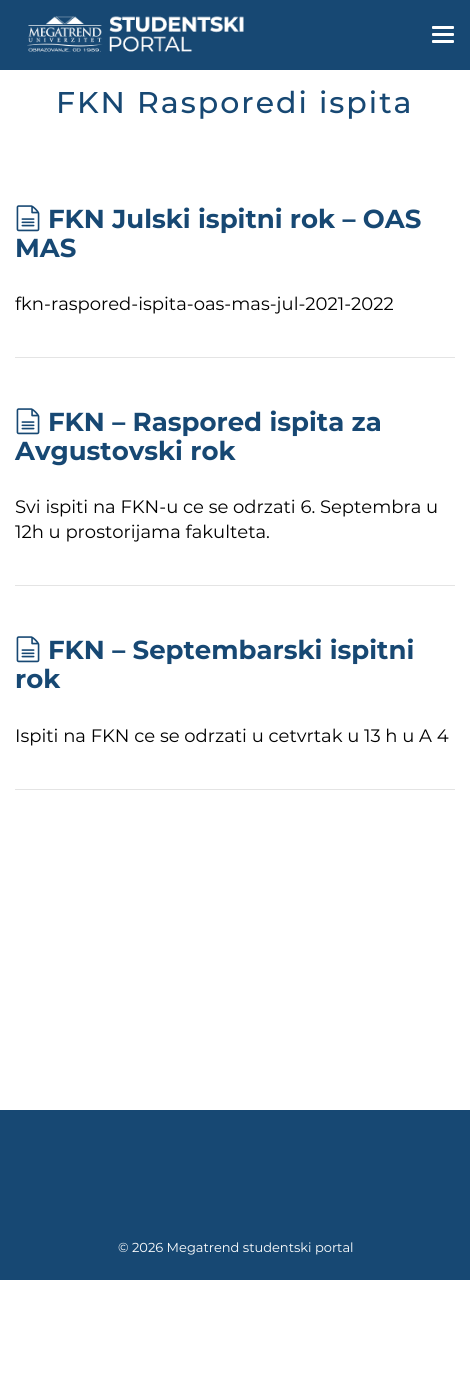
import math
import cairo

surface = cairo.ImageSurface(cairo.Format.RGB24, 470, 1385)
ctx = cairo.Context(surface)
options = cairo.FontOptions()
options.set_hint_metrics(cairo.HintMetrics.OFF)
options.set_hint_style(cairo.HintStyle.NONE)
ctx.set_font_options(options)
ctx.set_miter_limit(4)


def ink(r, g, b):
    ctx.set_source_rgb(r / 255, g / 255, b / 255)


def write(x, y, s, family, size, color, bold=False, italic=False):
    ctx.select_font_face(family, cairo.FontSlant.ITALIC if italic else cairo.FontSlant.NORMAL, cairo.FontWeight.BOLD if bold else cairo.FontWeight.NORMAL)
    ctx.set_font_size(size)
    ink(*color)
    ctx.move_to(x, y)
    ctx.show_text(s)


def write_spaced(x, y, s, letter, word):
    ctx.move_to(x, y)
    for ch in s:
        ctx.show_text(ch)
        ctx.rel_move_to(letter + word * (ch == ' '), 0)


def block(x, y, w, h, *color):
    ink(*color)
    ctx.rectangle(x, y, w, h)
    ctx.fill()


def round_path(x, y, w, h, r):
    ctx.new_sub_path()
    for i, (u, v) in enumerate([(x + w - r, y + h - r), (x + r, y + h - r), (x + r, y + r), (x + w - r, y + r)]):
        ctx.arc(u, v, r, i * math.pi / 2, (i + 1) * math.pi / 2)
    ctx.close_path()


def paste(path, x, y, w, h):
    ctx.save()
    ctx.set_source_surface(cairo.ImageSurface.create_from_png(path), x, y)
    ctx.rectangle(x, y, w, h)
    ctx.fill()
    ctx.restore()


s1 = dict(family="Montserrat", size=26, color=(23, 72, 115), bold=True)
s2 = dict(family="Montserrat", size=18, color=(0, 0, 0))
s3 = dict(family="Montserrat", size=13, color=(255, 255, 255))

ink(255, 255, 255)
ctx.paint()
block(0, 0, 470, 70, 23, 72, 115)
paste("pic1.png", 27, 16, 217, 36)
ink(255, 255, 255)
round_path(432, 26, 22, 3, 1)
ctx.fill()
round_path(432, 33, 22, 3, 1)
ctx.fill()
round_path(432, 40, 22, 3, 1)
ctx.fill()
ctx.select_font_face("Montserrat Medium")
ctx.set_font_size(30)
ink(23, 72, 115)
write_spaced(56, 113, "FKN Rasporedi ispita", 2, 0)
block(15, 357, 440, 1, 228, 228, 228)
paste("pic2.png", 16, 205, 24, 27)
write(48, 228, "FKN Julski ispitni rok – OAS", **s1)
write(15, 257, "MAS", **s1)
write(15, 310, "fkn-raspored-ispita-oas-mas-jul-2021-2022", **s2)
block(15, 585, 440, 1, 228, 228, 228)
paste("pic2.png", 16, 408, 24, 27)
write(48, 431, "FKN – Raspored ispita za", **s1)
write(15, 460, "Avgustovski rok", **s1)
write(15, 513, "Svi ispiti na FKN-u ce se odrzati 6. Septembra u", **s2)
write(15, 538, "12h u prostorijama fakulteta.", **s2)
block(15, 789, 440, 1, 228, 228, 228)
paste("pic2.png", 16, 636, 24, 27)
write(48, 659, "FKN – Septembarski ispitni", **s1)
write(15, 688, "rok", **s1)
write(15, 742, "Ispiti na FKN ce se odrzati u cetvrtak u 13 h u A 4", **s2)
block(0, 1110, 470, 170, 23, 72, 115)
write(118, 1252, "© 2026 Megatrend studentski portal", **s3)
surface.write_to_png("screenshot.png")
